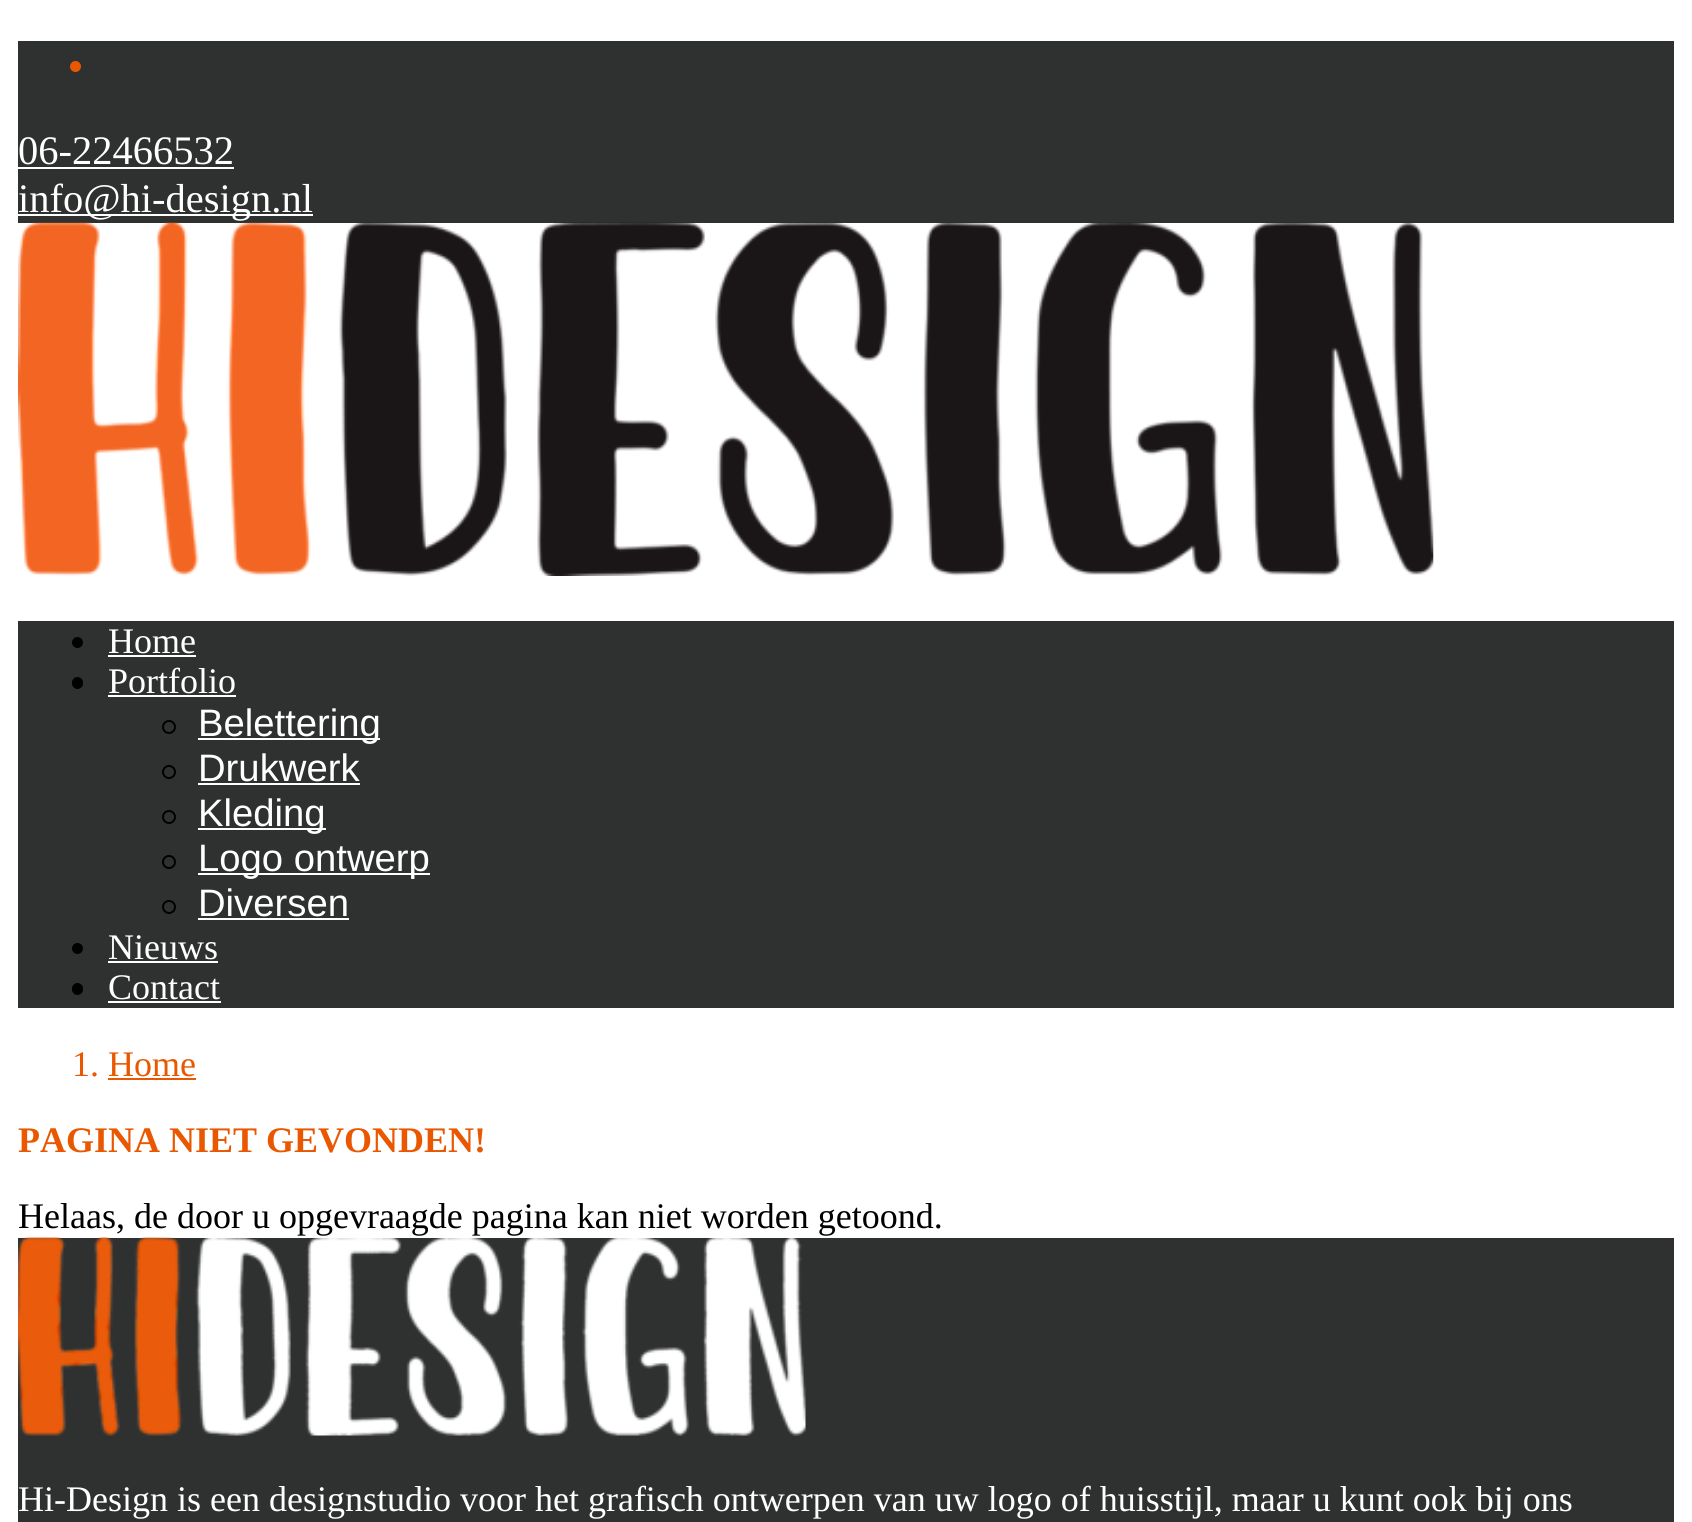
import math
import cairo

surface = cairo.ImageSurface(cairo.Format.RGB24, 1692, 1522)
ctx = cairo.Context(surface)
options = cairo.FontOptions()
options.set_hint_metrics(cairo.HintMetrics.OFF)
options.set_hint_style(cairo.HintStyle.NONE)
ctx.set_font_options(options)
ctx.set_miter_limit(4)


def ink(r, g, b):
    ctx.set_source_rgb(r / 255, g / 255, b / 255)


def write(x, y, s, family, size, color, bold=False, italic=False):
    ctx.select_font_face(family, cairo.FontSlant.ITALIC if italic else cairo.FontSlant.NORMAL, cairo.FontWeight.BOLD if bold else cairo.FontWeight.NORMAL)
    ctx.set_font_size(size)
    ink(*color)
    ctx.move_to(x, y)
    ctx.show_text(s)


def block(x, y, w, h, *color):
    ink(*color)
    ctx.rectangle(x, y, w, h)
    ctx.fill()


def round_path(x, y, w, h, r):
    ctx.new_sub_path()
    for i, (u, v) in enumerate([(x + w - r, y + h - r), (x + r, y + h - r), (x + r, y + r), (x + w - r, y + r)]):
        ctx.arc(u, v, r, i * math.pi / 2, (i + 1) * math.pi / 2)
    ctx.close_path()


def paste(path, x, y, w, h):
    ctx.save()
    ctx.set_source_surface(cairo.ImageSurface.create_from_png(path), x, y)
    ctx.rectangle(x, y, w, h)
    ctx.fill()
    ctx.restore()


s1 = dict(family="Liberation Serif", size=40.5, color=(255, 255, 255))
s2 = dict(family="Liberation Serif", size=36, color=(255, 255, 255))
s3 = dict(family="Liberation Sans", size=38.25, color=(255, 255, 255))
s4 = dict(family="Liberation Serif", size=36, color=(233, 88, 1))
s5 = dict(family="Liberation Serif", size=36, color=(233, 88, 1), bold=True)
s6 = dict(family="Liberation Serif", size=36, color=(0, 0, 0))

ink(255, 255, 255)
ctx.paint()
block(18, 41, 1656, 182, 47, 49, 49)
ink(233, 88, 1)
ctx.arc(75.5, 66.5, 5.5, 0, 2 * math.pi)
ctx.fill()
write(18, 164, "06-22466532", **s1)
block(18, 167, 216, 2, 255, 255, 255)
block(18, 214, 295, 2, 255, 255, 255)
write(18, 212, "info@hi-design.nl", **s1)
paste("pic1.png", 18, 222, 1416, 354)
block(18, 621, 1656, 387, 47, 49, 49)
ink(0, 0, 0)
ctx.arc(77.5, 642.5, 5.5, 0, 2 * math.pi)
ctx.fill()
write(108, 653, "Home", **s2)
block(108, 655, 88, 2, 255, 255, 255)
ink(0, 0, 0)
round_path(72, 677, 11, 12, 5.5)
ctx.fill()
write(108, 693, "Portfolio", **s2)
block(108, 695, 128, 2, 255, 255, 255)
ctx.new_path()
ctx.arc(169, 727, 6, 0, 2 * math.pi)
ink(0, 0, 0)
ctx.stroke()
block(198, 738, 182, 2, 255, 255, 255)
write(198, 736, "Belettering", **s3)
ctx.new_path()
ctx.arc(169, 772, 6, 0, 2 * math.pi)
ink(0, 0, 0)
ctx.stroke()
write(198, 781, "Drukwerk", **s3)
block(198, 783, 162, 2, 255, 255, 255)
ctx.new_path()
ctx.arc(169, 817, 6, 0, 2 * math.pi)
ink(0, 0, 0)
ctx.stroke()
block(198, 828, 128, 2, 255, 255, 255)
write(198, 826, "Kleding", **s3)
ctx.new_path()
ctx.arc(169, 862, 6, 0, 2 * math.pi)
ink(0, 0, 0)
ctx.stroke()
block(198, 873, 232, 2, 255, 255, 255)
write(198, 871, "Logo ontwerp", **s3)
ctx.new_path()
ctx.arc(169, 907, 6, 0, 2 * math.pi)
ink(0, 0, 0)
ctx.stroke()
write(198, 916, "Diversen", **s3)
block(198, 918, 151, 2, 255, 255, 255)
ink(0, 0, 0)
ctx.new_path()
ctx.arc(77.5, 948.5, 5.5, 0, 2 * math.pi)
ctx.fill()
write(108, 959, "Nieuws", **s2)
block(108, 961, 110, 2, 255, 255, 255)
ink(0, 0, 0)
round_path(72, 983, 11, 12, 5.5)
ctx.fill()
write(108, 999, "Contact", **s2)
block(108, 1001, 113, 2, 255, 255, 255)
write(72, 1076, "1. Home", **s4)
block(108, 1078, 88, 2, 233, 88, 1)
write(18, 1152, "PAGINA NIET GEVONDEN!", **s5)
write(18, 1228, "Helaas, de door u opgevraagde pagina kan niet worden getoond.", **s6)
block(18, 1238, 1656, 284, 47, 49, 49)
paste("pic2.png", 18, 1237, 788, 199)
write(18, 1511, "Hi-Design is een designstudio voor het grafisch ontwerpen van uw logo of huisstijl, maar u kunt ook bij ons", **s2)
surface.write_to_png("screenshot.png")
